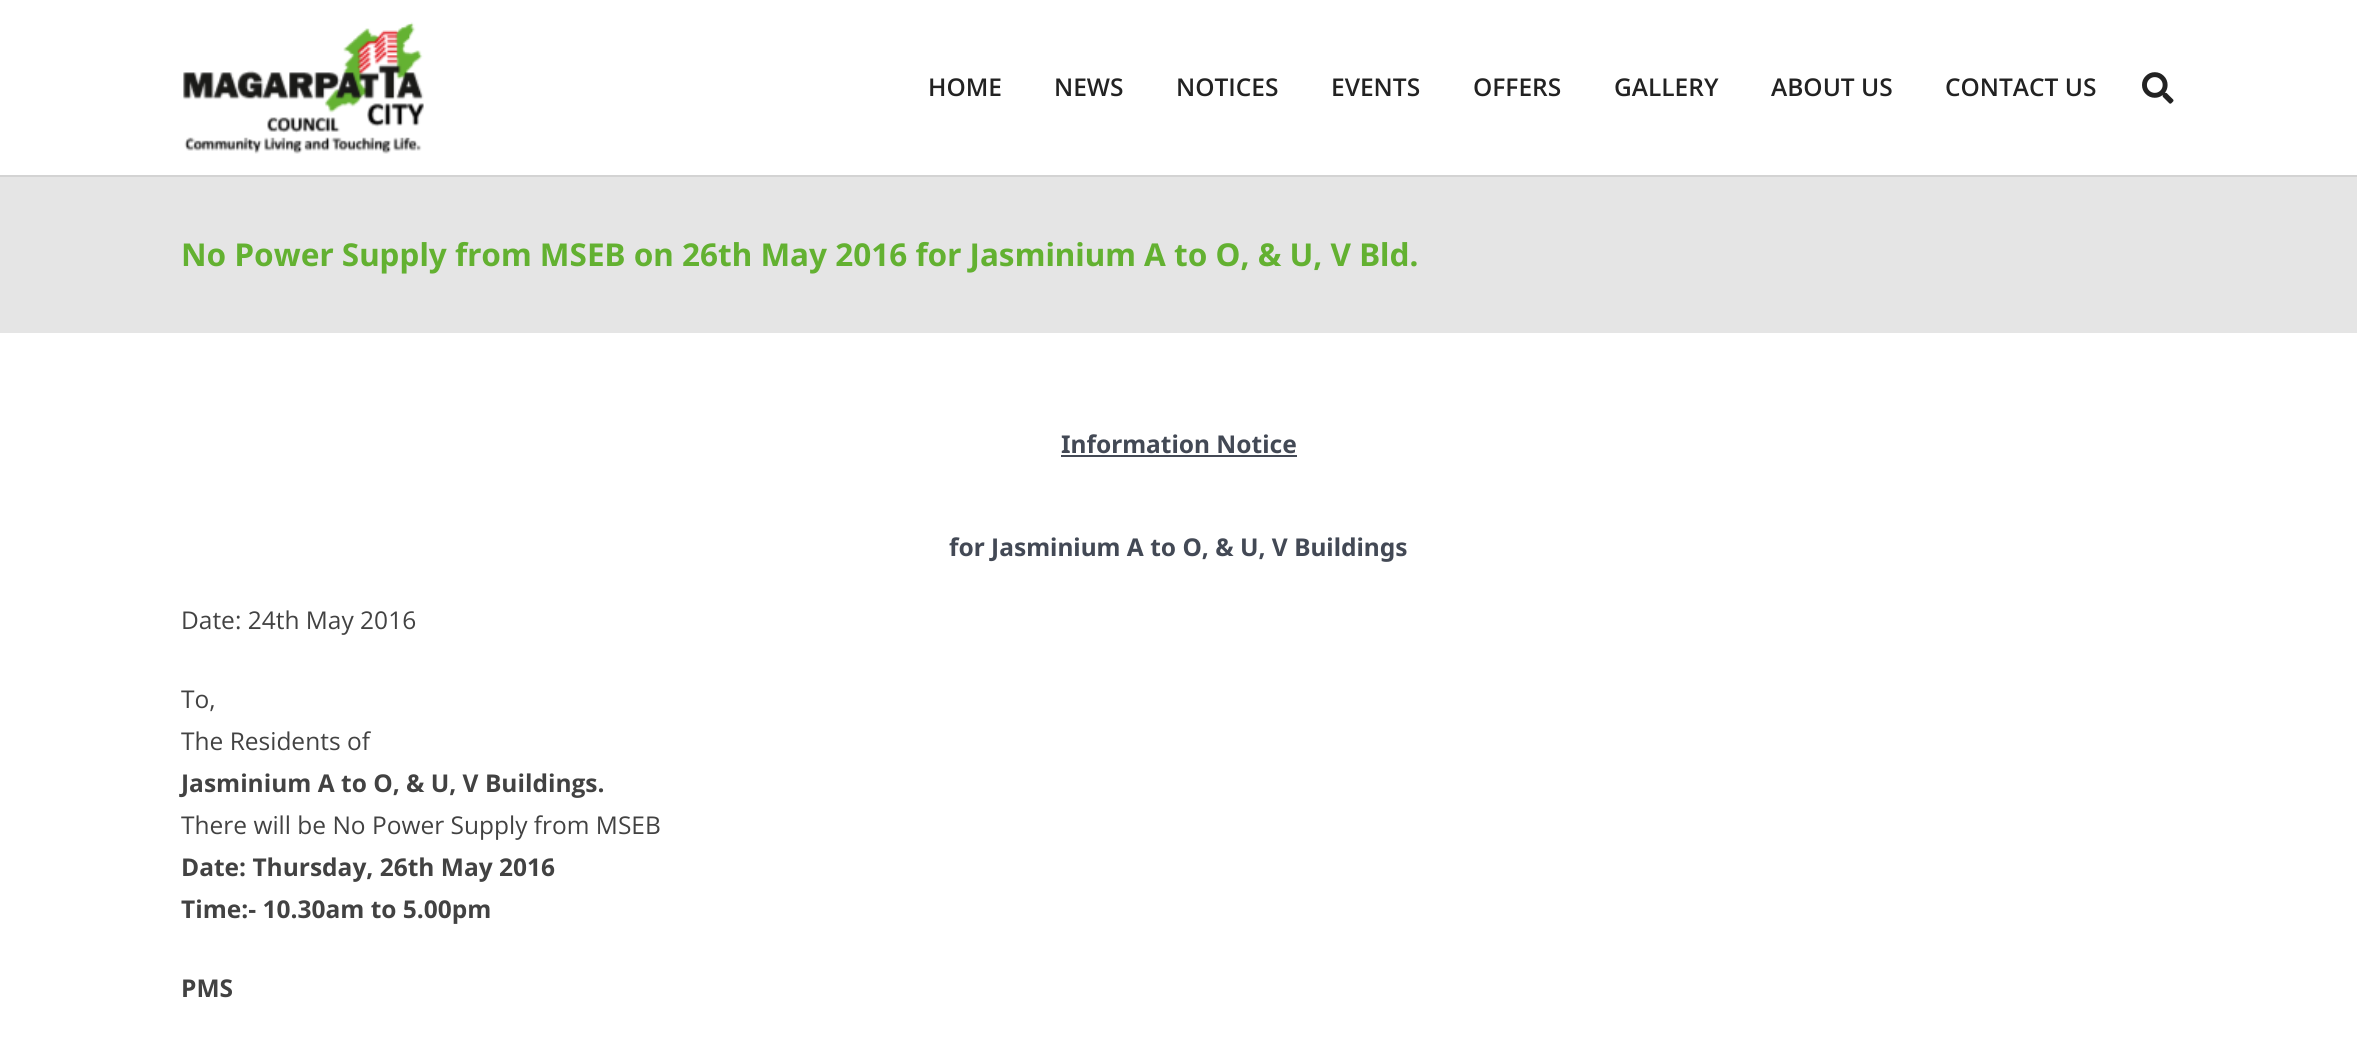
import math
import cairo

surface = cairo.ImageSurface(cairo.Format.RGB24, 2357, 1053)
ctx = cairo.Context(surface)
options = cairo.FontOptions()
options.set_hint_metrics(cairo.HintMetrics.OFF)
options.set_hint_style(cairo.HintStyle.NONE)
ctx.set_font_options(options)
ctx.set_miter_limit(4)


def ink(r, g, b):
    ctx.set_source_rgb(r / 255, g / 255, b / 255)


def write(x, y, s, family, size, color, bold=False, italic=False):
    ctx.select_font_face(family, cairo.FontSlant.ITALIC if italic else cairo.FontSlant.NORMAL, cairo.FontWeight.BOLD if bold else cairo.FontWeight.NORMAL)
    ctx.set_font_size(size)
    ink(*color)
    ctx.move_to(x, y)
    ctx.show_text(s)


def block(x, y, w, h, *color):
    ink(*color)
    ctx.rectangle(x, y, w, h)
    ctx.fill()


def paste(path, x, y, w, h):
    ctx.save()
    ctx.set_source_surface(cairo.ImageSurface.create_from_png(path), x, y)
    ctx.rectangle(x, y, w, h)
    ctx.fill()
    ctx.restore()


s1 = dict(family="Open Sans SemiBold", size=24.5, color=(34, 34, 34))
s2 = dict(family="Noto Sans", size=31.5, color=(99, 177, 49), bold=True)
s3 = dict(family="Noto Sans", size=24.5, color=(67, 73, 85), bold=True)
s4 = dict(family="Open Sans", size=24.5, color=(66, 66, 66))
s5 = dict(family="Open Sans", size=24.5, color=(66, 66, 66), bold=True)

ink(255, 255, 255)
ctx.paint()
block(0, 175, 2357, 2, 211, 211, 211)
paste("pic1.png", 183, 22, 241, 132)
write(928, 96, "HOME", **s1)
write(1054, 96, "NEWS", **s1)
write(1176, 96, "NOTICES", **s1)
write(1331, 96, "EVENTS", **s1)
write(1473, 96, "OFFERS", **s1)
write(1614, 96, "GALLERY", **s1)
write(1771, 96, "ABOUT US", **s1)
write(1945, 96, "CONTACT US", **s1)
paste("pic2.png", 2142, 72, 32, 32)
block(0, 177, 2357, 156, 229, 229, 229)
write(181, 266, "No Power Supply from MSEB on 26th May 2016 for Jasminium A to O, & U, V Bld.", **s2)
write(1061, 453, "Information Notice", **s3)
block(1061, 455, 236, 2, 67, 73, 85)
write(949, 556, "for Jasminium A to O, & U, V Buildings", **s3)
write(181, 629, "Date: 24th May 2016", **s4)
write(181, 708, "To,", **s4)
write(181, 750, "The Residents of", **s4)
write(181, 792, "Jasminium A to O, & U, V Buildings.", **s5)
write(181, 834, "There will be No Power Supply from MSEB", **s4)
write(181, 876, "Date: Thursday, 26th May 2016", **s5)
write(181, 918, "Time:- 10.30am to 5.00pm", **s5)
write(181, 997, "PMS", **s5)
surface.write_to_png("screenshot.png")
